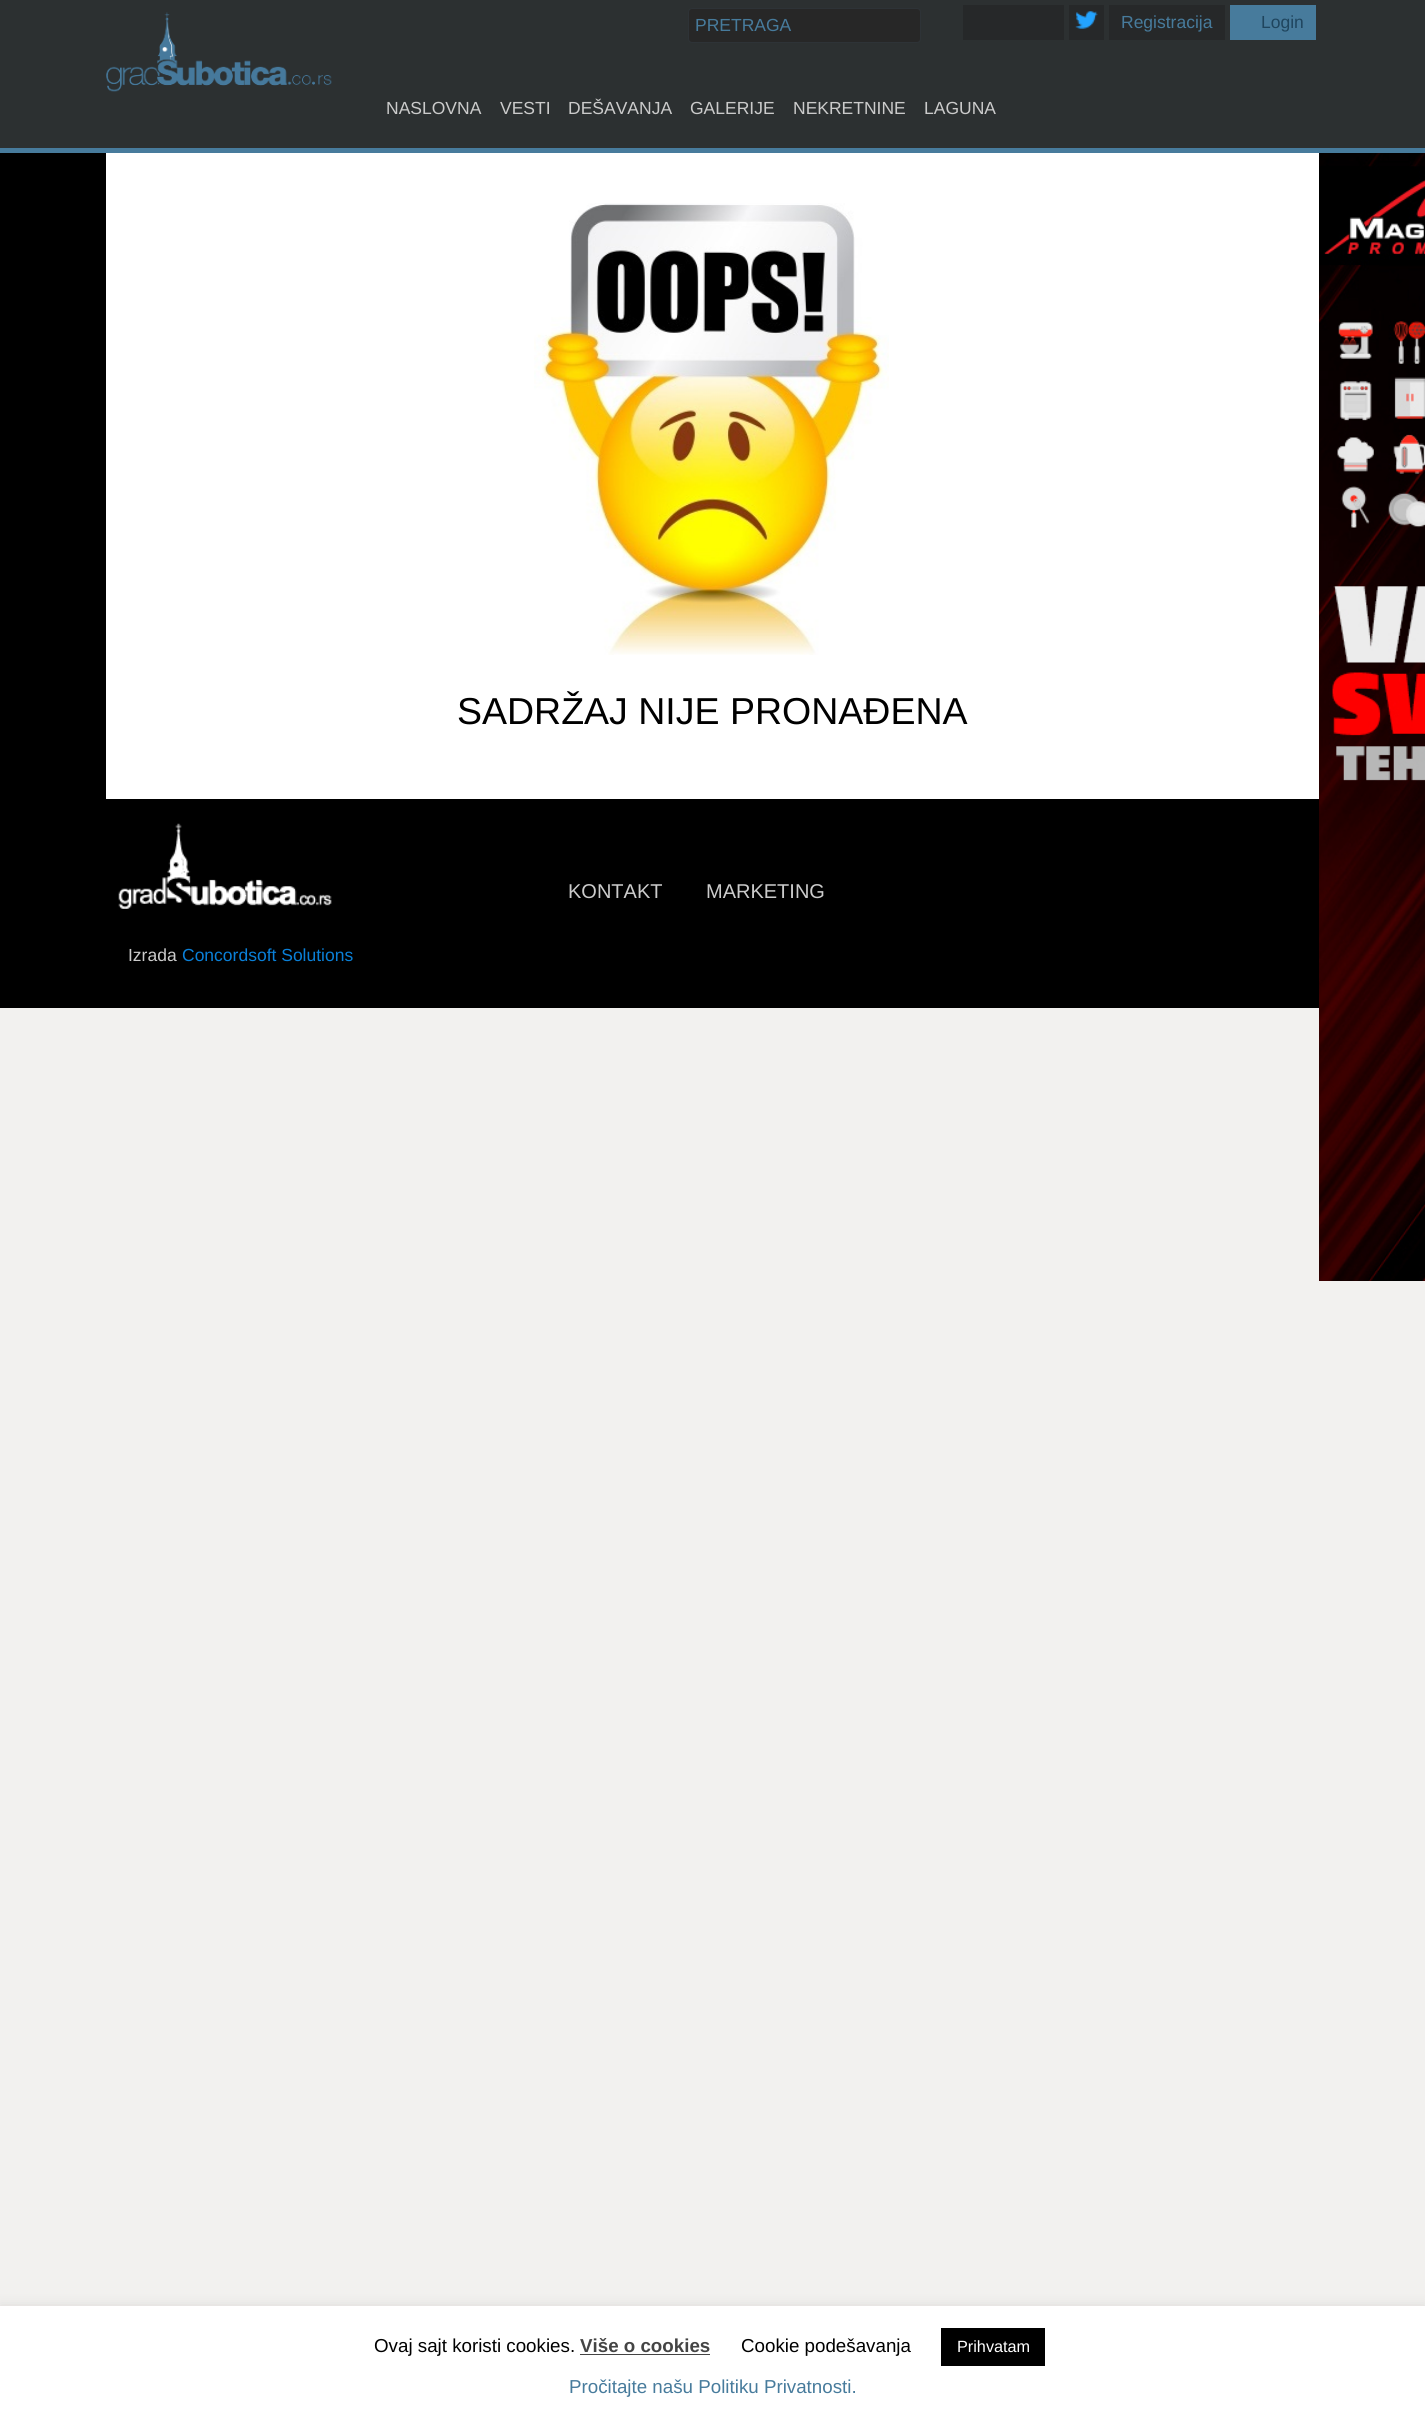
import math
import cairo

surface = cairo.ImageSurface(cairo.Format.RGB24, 1425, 2416)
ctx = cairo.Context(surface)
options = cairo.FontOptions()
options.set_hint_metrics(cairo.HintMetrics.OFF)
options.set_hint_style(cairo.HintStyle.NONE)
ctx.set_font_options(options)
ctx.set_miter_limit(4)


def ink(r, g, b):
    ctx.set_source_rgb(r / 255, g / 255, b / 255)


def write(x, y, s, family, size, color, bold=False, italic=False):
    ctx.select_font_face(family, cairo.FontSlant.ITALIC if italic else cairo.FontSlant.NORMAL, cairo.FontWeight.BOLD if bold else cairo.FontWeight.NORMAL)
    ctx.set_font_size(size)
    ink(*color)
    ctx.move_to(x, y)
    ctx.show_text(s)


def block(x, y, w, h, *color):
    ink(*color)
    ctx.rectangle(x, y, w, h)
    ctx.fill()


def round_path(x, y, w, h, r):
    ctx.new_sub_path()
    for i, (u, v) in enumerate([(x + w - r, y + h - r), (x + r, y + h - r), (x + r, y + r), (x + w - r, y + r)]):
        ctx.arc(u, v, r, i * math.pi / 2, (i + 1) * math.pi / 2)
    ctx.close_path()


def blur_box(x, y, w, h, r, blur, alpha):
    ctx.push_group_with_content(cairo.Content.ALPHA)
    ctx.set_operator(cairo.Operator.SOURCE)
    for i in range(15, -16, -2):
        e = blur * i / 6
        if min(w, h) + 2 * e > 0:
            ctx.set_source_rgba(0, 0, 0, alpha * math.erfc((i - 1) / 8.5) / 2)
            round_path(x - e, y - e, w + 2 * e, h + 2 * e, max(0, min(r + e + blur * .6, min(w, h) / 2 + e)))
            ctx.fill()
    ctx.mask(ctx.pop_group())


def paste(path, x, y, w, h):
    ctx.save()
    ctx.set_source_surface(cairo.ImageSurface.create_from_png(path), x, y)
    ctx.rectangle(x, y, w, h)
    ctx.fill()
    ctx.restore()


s1 = dict(family="Liberation Sans", size=17.5, color=(71, 123, 156))
s2 = dict(family="Liberation Sans", size=17.5, color=(31, 69, 94))
s3 = dict(family="Liberation Sans", size=17.5, color=(203, 203, 203))
s4 = dict(family="Liberation Sans", size=37.5, color=(0, 0, 0))
s5 = dict(family="Liberation Sans", size=20, color=(203, 203, 203))
s6 = dict(family="Liberation Sans", size=17.5, color=(10, 128, 216))
s7 = dict(family="Liberation Sans", size=18.75, color=(0, 0, 0))
s8 = dict(family="Liberation Sans", size=18.75, color=(68, 68, 68), bold=True)
s9 = dict(family="Liberation Sans", size=16.25, color=(255, 255, 255))
s10 = dict(family="Liberation Sans", size=18.75, color=(71, 123, 156))

ink(242, 241, 239)
ctx.paint()
block(0, 0, 1425, 148, 44, 48, 49)
paste("pic1.png", 106, 12, 226, 80)
ink(39, 39, 39)
round_path(688.5, 8.5, 232, 34, 3.5)
ctx.fill_preserve()
ink(46, 51, 55)
ctx.set_line_width(1)
ctx.stroke()
write(695, 31, "PRETRAGA", **s1)
block(963, 5, 101, 35, 38, 40, 41)
block(1069, 5, 35, 35, 38, 40, 41)
paste("pic2.png", 1075, 11, 23, 18)
block(1109, 5, 116, 35, 38, 40, 41)
write(1121, 28, "Registracija", **s1)
block(1230, 5, 86, 35, 71, 123, 156)
write(1261, 28, "Login", **s2)
write(386, 114, "NASLOVNA", **s3)
write(500, 114, "VESTI", **s3)
write(568, 114, "DEŠAVANJA", **s3)
write(690, 114, "GALERIJE", **s3)
write(793, 114, "NEKRETNINE", **s3)
write(924, 114, "LAGUNA", **s3)
block(0, 148, 1425, 5, 71, 123, 156)
block(0, 153, 106, 646, 0, 0, 0)
block(106, 153, 1213, 646, 255, 255, 255)
paste("pic3.png", 534, 203, 355, 452)
write(457, 724, "SADRŽAJ NIJE PRONAĐENA", **s4)
paste("pic4.png", 1319, 153, 106, 1128)
block(0, 799, 1319, 209, 0, 0, 0)
paste("pic5.png", 118, 823, 214, 86)
write(568, 898, "KONTAKT", **s5)
write(706, 898, "MARKETING", **s5)
write(128, 961, "Izrada", **s3)
write(182, 961, "Concordsoft Solutions", **s6)
ink(172, 171, 171)
blur_box(0, 2305, 1425, 110, 0, 6, 0.3)
block(0, 2306, 1425, 110, 255, 255, 255)
write(374, 2352, "Ovaj sajt koristi cookies.", **s7)
write(580, 2352, "Više o cookies", **s8)
block(580, 2354, 130, 1, 68, 68, 68)
write(741, 2352, "Cookie podešavanja", **s7)
block(941, 2328, 104, 38, 0, 0, 0)
write(957, 2352, "Prihvatam", **s9)
write(569, 2393, "Pročitajte našu Politiku Privatnosti.", **s10)
surface.write_to_png("screenshot.png")
